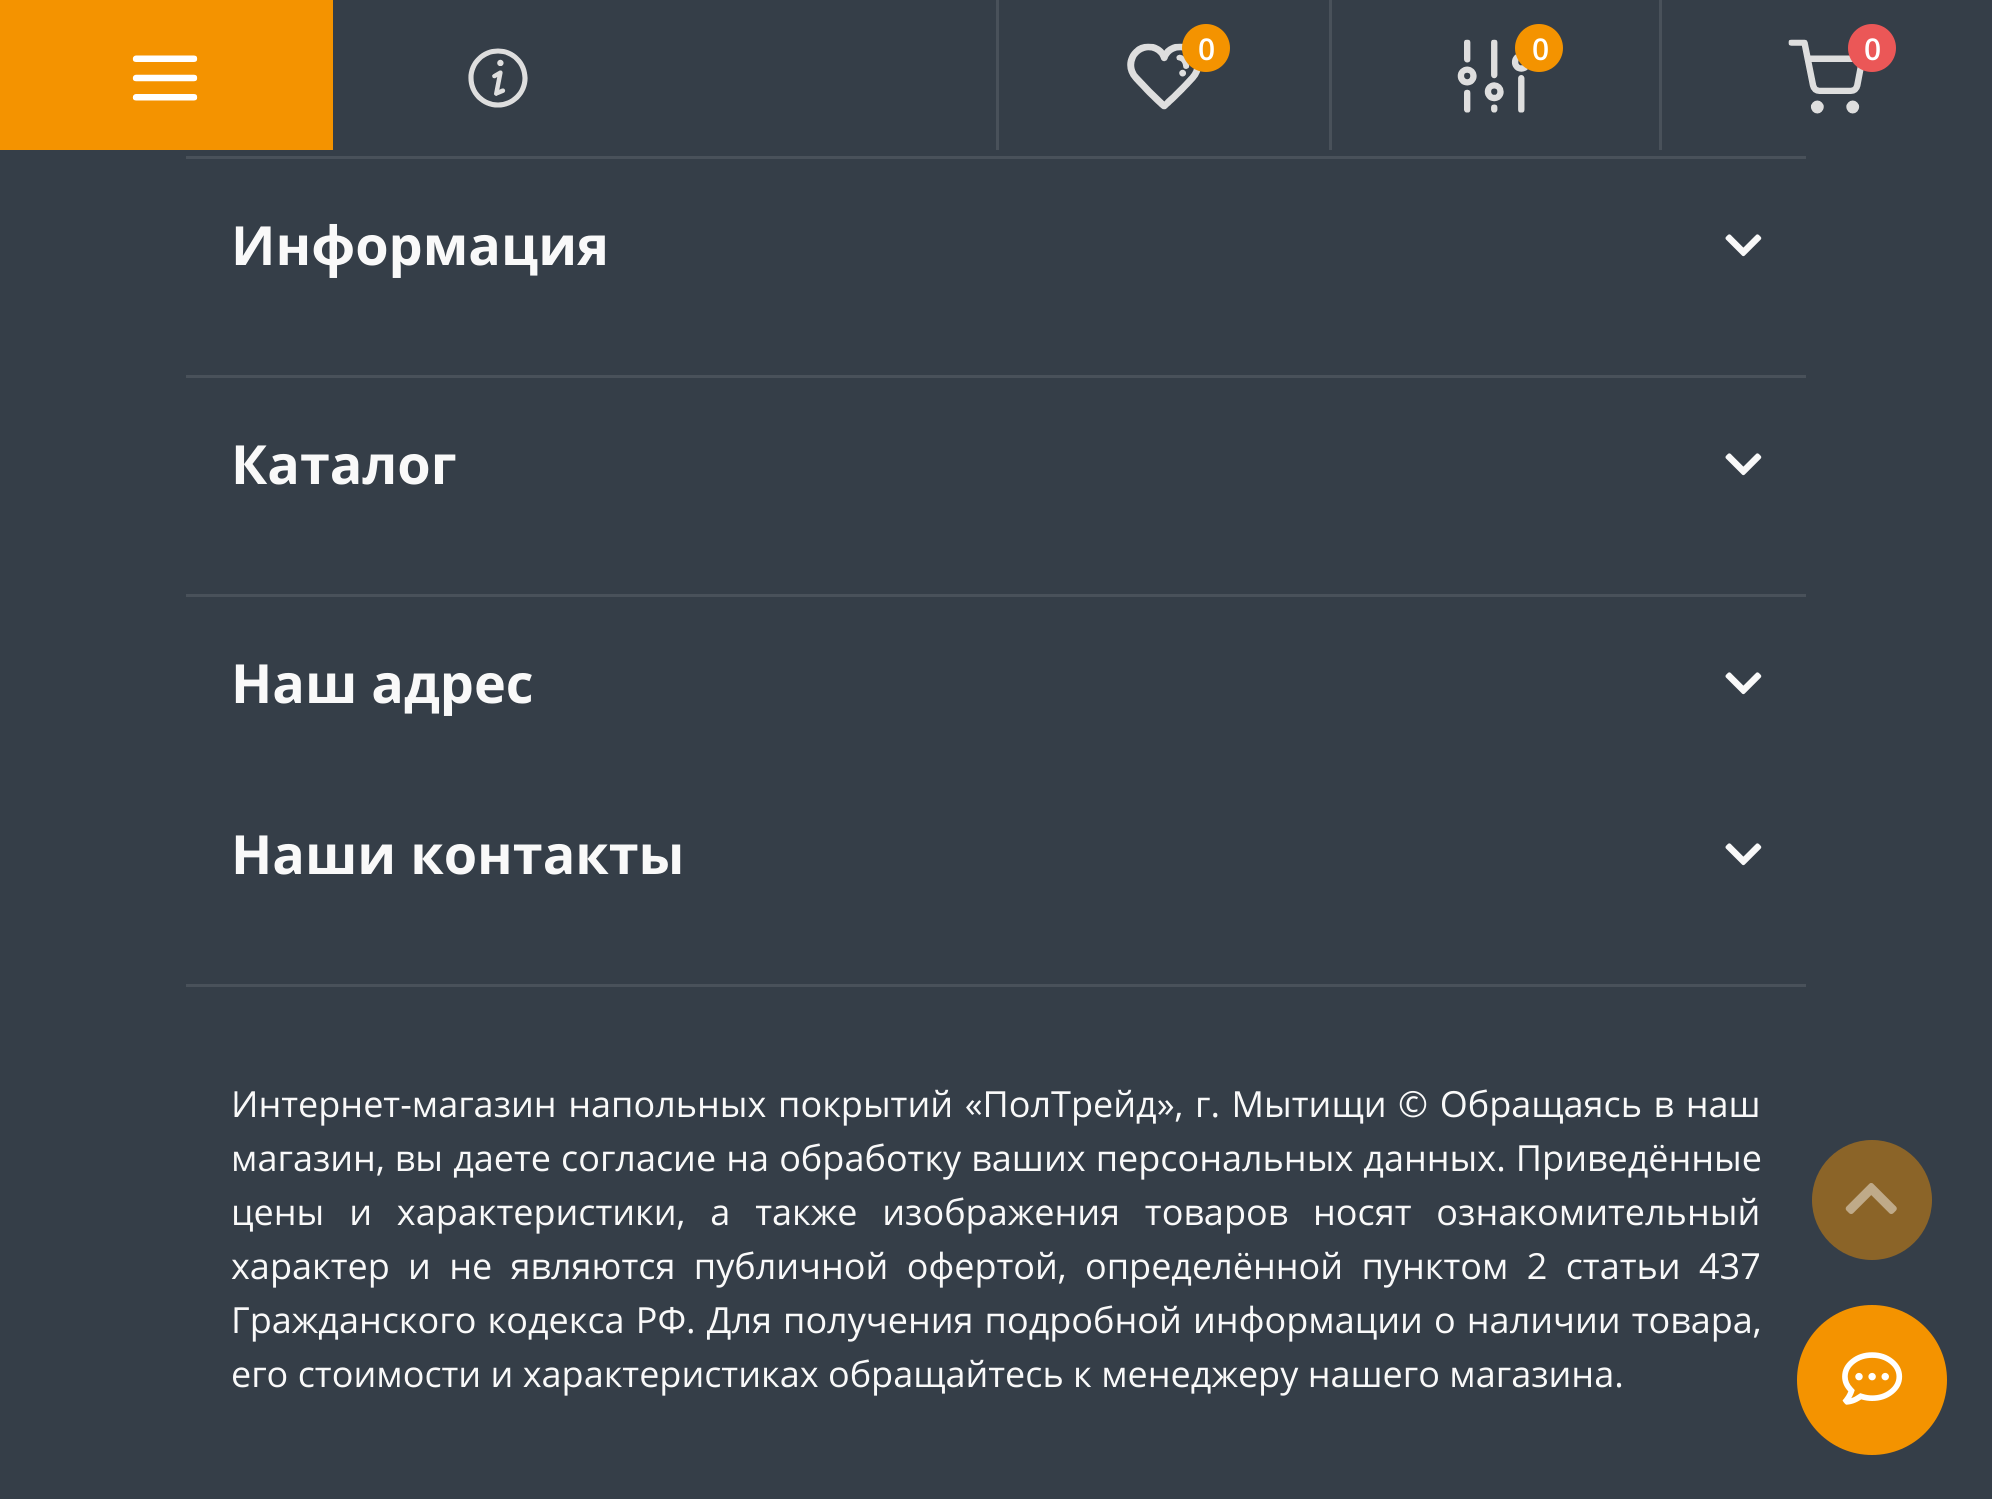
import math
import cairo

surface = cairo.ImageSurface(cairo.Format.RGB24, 1992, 1499)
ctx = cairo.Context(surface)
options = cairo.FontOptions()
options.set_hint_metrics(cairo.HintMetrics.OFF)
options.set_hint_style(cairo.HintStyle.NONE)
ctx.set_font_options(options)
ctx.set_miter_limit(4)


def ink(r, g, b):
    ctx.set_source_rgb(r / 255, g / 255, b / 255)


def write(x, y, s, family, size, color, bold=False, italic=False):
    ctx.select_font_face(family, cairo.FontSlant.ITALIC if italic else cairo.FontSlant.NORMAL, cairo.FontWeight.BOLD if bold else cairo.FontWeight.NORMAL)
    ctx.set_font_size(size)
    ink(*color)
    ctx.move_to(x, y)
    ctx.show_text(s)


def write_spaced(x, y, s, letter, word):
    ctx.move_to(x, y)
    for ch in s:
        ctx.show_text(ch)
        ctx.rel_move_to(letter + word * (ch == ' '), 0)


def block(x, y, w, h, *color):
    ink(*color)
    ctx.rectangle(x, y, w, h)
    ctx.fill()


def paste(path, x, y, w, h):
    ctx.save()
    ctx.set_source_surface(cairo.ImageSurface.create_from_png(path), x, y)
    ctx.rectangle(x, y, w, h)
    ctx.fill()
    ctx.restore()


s1 = dict(family="Open Sans SemiBold", size=30, color=(255, 255, 255))
s2 = dict(family="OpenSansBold", size=54, color=(249, 249, 249), bold=True)
s3 = dict(family="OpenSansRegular", size=36, color=(249, 249, 249))

ink(53, 62, 72)
ctx.paint()
block(0, 0, 333, 150, 244, 147, 0)
paste("pic1.png", 132, 55, 66, 46)
paste("pic2.png", 468, 48, 60, 60)
block(996, 0, 3, 150, 73, 81, 90)
paste("pic3.png", 1127, 43, 74, 67)
ink(244, 147, 0)
ctx.arc(1206, 48, 24, 0, 2 * math.pi)
ctx.fill()
write(1198, 60, "0", **s1)
block(1329, 0, 3, 150, 73, 81, 90)
paste("pic4.png", 1457, 39, 71, 74)
ink(244, 147, 0)
ctx.arc(1539, 48, 24, 0, 2 * math.pi)
ctx.fill()
write(1532, 60, "0", **s1)
block(1659, 0, 3, 150, 73, 81, 90)
paste("pic5.png", 1788, 39, 76, 75)
ink(235, 87, 87)
ctx.arc(1872, 48, 24, 0, 2 * math.pi)
ctx.fill()
write(1864, 60, "0", **s1)
block(186, 156, 1620, 3, 73, 81, 90)
block(186, 375, 1620, 3, 73, 81, 90)
write(231, 265, "Информация", **s2)
paste("pic6.png", 1725, 234, 37, 23)
block(186, 594, 1620, 3, 73, 81, 90)
write(231, 484, "Каталог", **s2)
paste("pic6.png", 1725, 453, 37, 23)
block(186, 984, 1620, 3, 73, 81, 90)
write(231, 703, "Наш адрес", **s2)
paste("pic6.png", 1725, 672, 37, 23)
write(231, 874, "Наши контакты", **s2)
paste("pic6.png", 1725, 843, 37, 23)
ctx.select_font_face("OpenSansRegular")
ctx.set_font_size(36)
write_spaced(231, 1117, "Интернет-магазин напольных покрытий «ПолТрейд», г. Мытищи © Обращаясь в наш", 0, 2.25)
write_spaced(231, 1171, "магазин, вы даете согласие на обработку ваших персональных данных. Приведённые", 0, 0.75)
write_spaced(231, 1225, "цены и характеристики, а также изображения товаров носят ознакомительный", 0, 15.5)
write_spaced(231, 1279, "характер и не являются публичной офертой, определённой пунктом 2 статьи 437", 0, 9)
write_spaced(231, 1333, "Гражданского кодекса РФ. Для получения подробной информации о наличии товара,", 0, 1.75)
write(231, 1387, "его стоимости и характеристиках обращайтесь к менеджеру нашего магазина.", **s3)
ink(139, 100, 40)
ctx.new_path()
ctx.arc(1872, 1200, 60, 0, 2 * math.pi)
ctx.fill()
paste("pic7.png", 1845, 1183, 52, 31)
ink(244, 147, 0)
ctx.arc(1872, 1380, 75, 0, 2 * math.pi)
ctx.fill()
paste("pic8.png", 1842, 1352, 61, 53)
surface.write_to_png("screenshot.png")
